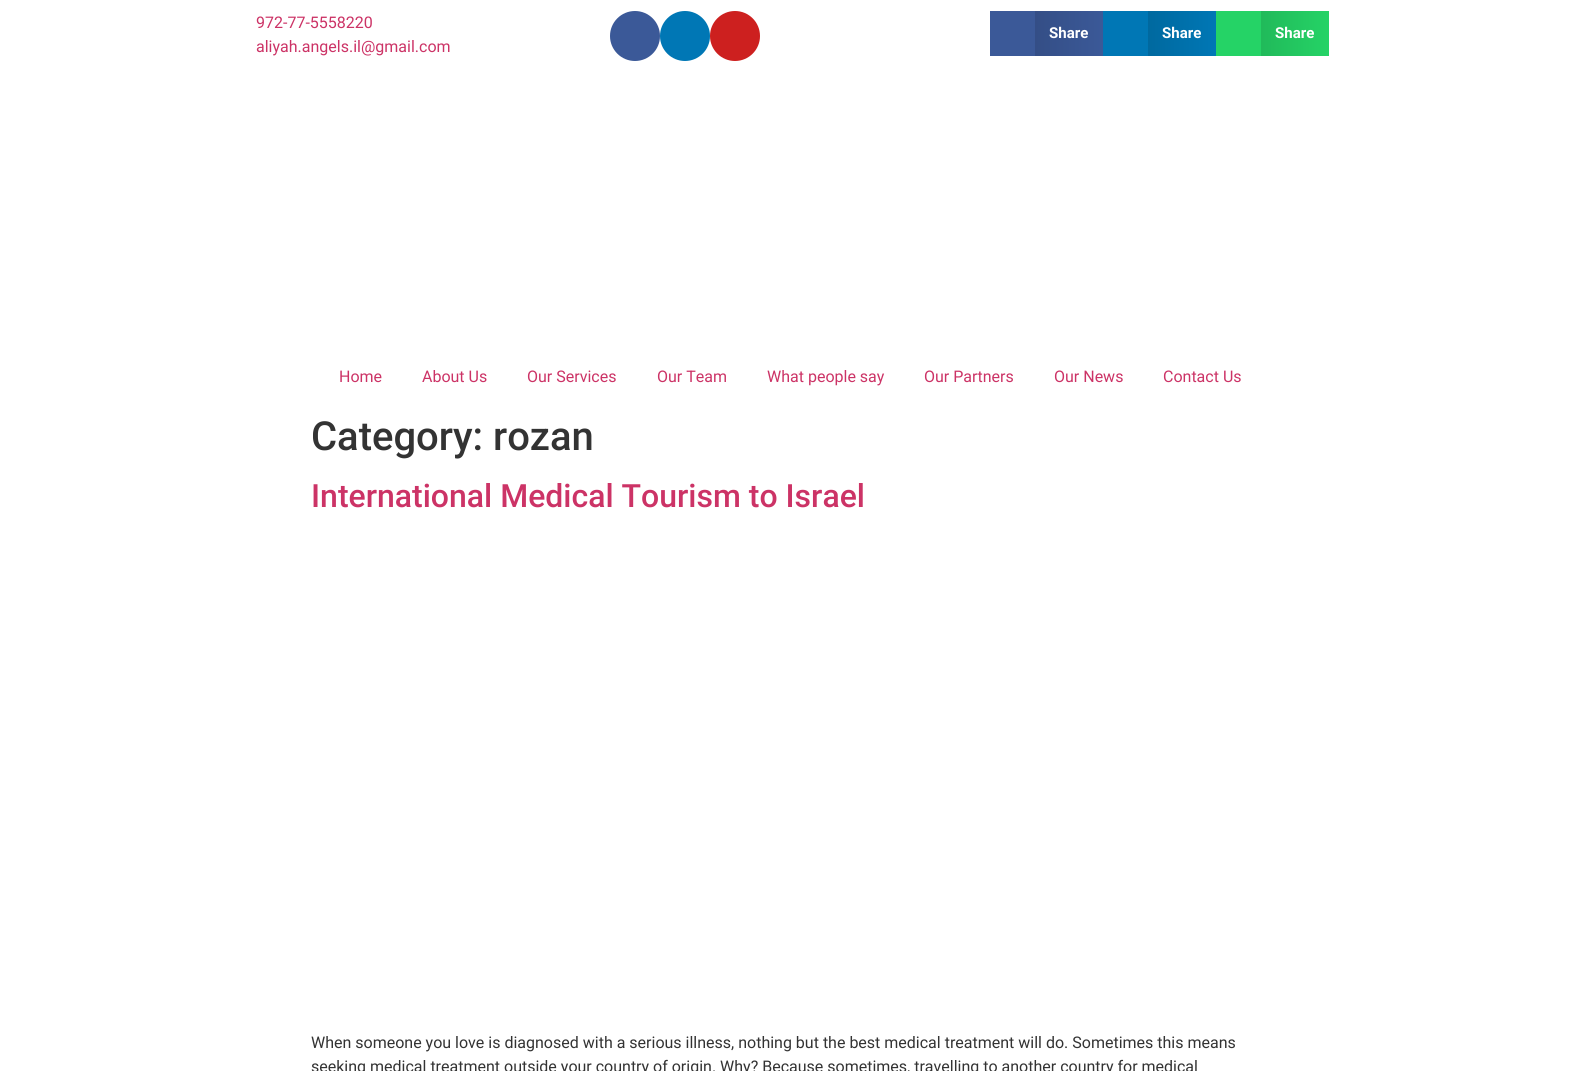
import math
import cairo

surface = cairo.ImageSurface(cairo.Format.RGB24, 1581, 1071)
ctx = cairo.Context(surface)
options = cairo.FontOptions()
options.set_hint_metrics(cairo.HintMetrics.OFF)
options.set_hint_style(cairo.HintStyle.NONE)
ctx.set_font_options(options)
ctx.set_miter_limit(4)


def ink(r, g, b):
    ctx.set_source_rgb(r / 255, g / 255, b / 255)


def write(x, y, s, family, size, color, bold=False, italic=False):
    ctx.select_font_face(family, cairo.FontSlant.ITALIC if italic else cairo.FontSlant.NORMAL, cairo.FontWeight.BOLD if bold else cairo.FontWeight.NORMAL)
    ctx.set_font_size(size)
    ink(*color)
    ctx.move_to(x, y)
    ctx.show_text(s)


def block(x, y, w, h, *color):
    ink(*color)
    ctx.rectangle(x, y, w, h)
    ctx.fill()


s1 = dict(family="Roboto", size=16, color=(204, 51, 102))
s2 = dict(family="Roboto", size=15, color=(255, 255, 255), bold=True)
s3 = dict(family="Roboto Medium", size=40, color=(51, 51, 51))
s4 = dict(family="Roboto Medium", size=32, color=(204, 51, 102))
s5 = dict(family="Roboto", size=16, color=(51, 51, 51))

ink(255, 255, 255)
ctx.paint()
write(256, 28, "972-77-5558220", **s1)
write(256, 52, "aliyah.angels.il@gmail.com", **s1)
ink(59, 89, 152)
ctx.new_path()
ctx.arc(635, 36, 25, 0, 2 * math.pi)
ctx.fill()
ink(0, 119, 181)
ctx.arc(685, 36, 25, 0, 2 * math.pi)
ctx.fill()
ink(205, 32, 31)
ctx.arc(735, 36, 25, 0, 2 * math.pi)
ctx.fill()
block(990, 11, 45, 45, 59, 89, 152)
gradient = cairo.LinearGradient(1035, 34, 1103, 34)
gradient.add_color_stop_rgba(0, 0.204, 0.306, 0.525, 1)
gradient.add_color_stop_rgba(1, 0.231, 0.349, 0.596, 1)
ctx.set_source(gradient)
ctx.rectangle(1035, 11, 68, 45)
ctx.fill()
write(1049, 38, "Share", **s2)
block(1103, 11, 45, 45, 0, 119, 181)
gradient = cairo.LinearGradient(1148, 34, 1216, 34)
gradient.add_color_stop_rgba(0, 0, 0.412, 0.624, 1)
gradient.add_color_stop_rgba(1, 0, 0.467, 0.71, 1)
ctx.set_source(gradient)
ctx.rectangle(1148, 11, 68, 45)
ctx.fill()
write(1162, 38, "Share", **s2)
block(1216, 11, 45, 45, 37, 211, 102)
gradient = cairo.LinearGradient(1261, 34, 1329, 34)
gradient.add_color_stop_rgba(0, 0.129, 0.729, 0.353, 1)
gradient.add_color_stop_rgba(1, 0.145, 0.827, 0.4, 1)
ctx.set_source(gradient)
ctx.rectangle(1261, 11, 68, 45)
ctx.fill()
write(1275, 38, "Share", **s2)
write(339, 382, "Home", **s1)
write(422, 382, "About Us", **s1)
write(527, 382, "Our Services", **s1)
write(657, 382, "Our Team", **s1)
write(767, 382, "What people say", **s1)
write(924, 382, "Our Partners", **s1)
write(1054, 382, "Our News", **s1)
write(1163, 382, "Contact Us", **s1)
write(311, 450, "Category: rozan", **s3)
write(311, 507, "International Medical Tourism to Israel", **s4)
write(311, 1048, "When someone you love is diagnosed with a serious illness, nothing but the best medical treatment will do. Sometimes this means", **s5)
write(311, 1072, "seeking medical treatment outside your country of origin. Why? Because sometimes, travelling to another country for medical", **s5)
surface.write_to_png("screenshot.png")
